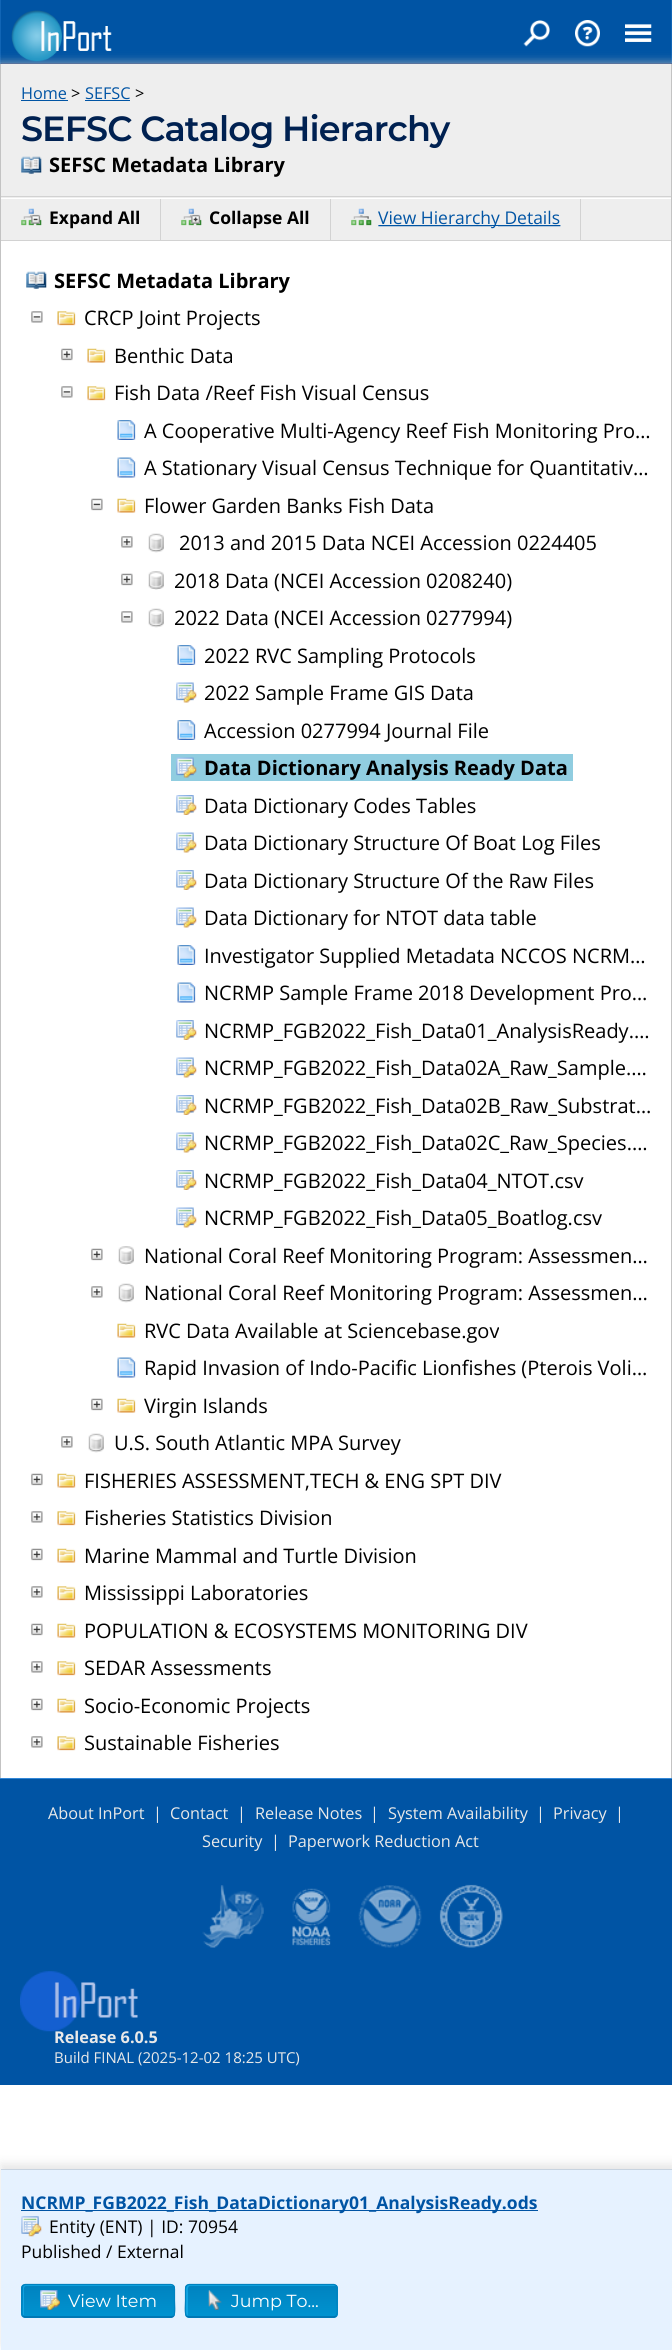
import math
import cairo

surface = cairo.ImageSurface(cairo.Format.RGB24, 672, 2350)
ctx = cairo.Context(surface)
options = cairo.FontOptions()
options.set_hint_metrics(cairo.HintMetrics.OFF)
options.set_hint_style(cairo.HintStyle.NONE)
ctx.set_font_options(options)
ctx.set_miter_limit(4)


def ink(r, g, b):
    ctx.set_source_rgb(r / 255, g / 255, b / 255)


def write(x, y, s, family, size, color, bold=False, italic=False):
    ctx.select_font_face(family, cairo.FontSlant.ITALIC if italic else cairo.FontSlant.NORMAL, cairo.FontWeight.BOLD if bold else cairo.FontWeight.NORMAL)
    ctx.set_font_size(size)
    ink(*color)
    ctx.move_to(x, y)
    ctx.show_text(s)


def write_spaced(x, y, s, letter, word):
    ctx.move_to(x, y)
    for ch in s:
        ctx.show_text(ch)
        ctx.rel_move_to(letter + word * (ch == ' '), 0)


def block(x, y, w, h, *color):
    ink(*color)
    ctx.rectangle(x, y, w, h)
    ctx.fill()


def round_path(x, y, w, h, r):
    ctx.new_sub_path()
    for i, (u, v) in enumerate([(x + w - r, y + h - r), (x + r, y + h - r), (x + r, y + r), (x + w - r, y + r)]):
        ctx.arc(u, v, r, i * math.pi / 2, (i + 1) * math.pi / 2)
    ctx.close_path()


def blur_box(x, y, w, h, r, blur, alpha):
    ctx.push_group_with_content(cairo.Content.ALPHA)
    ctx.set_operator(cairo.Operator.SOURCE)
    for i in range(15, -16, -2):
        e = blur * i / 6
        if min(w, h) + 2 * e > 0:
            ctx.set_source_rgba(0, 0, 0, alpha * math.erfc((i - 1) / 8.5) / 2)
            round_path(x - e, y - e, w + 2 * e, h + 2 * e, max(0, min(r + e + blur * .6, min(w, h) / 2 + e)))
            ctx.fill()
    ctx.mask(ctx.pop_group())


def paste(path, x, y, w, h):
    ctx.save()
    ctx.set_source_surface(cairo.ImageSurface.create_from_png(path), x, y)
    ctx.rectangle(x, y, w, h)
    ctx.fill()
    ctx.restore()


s1 = dict(family="Open Sans", size=16.25, color=(0, 84, 164))
s2 = dict(family="Open Sans", size=16.25, color=(0, 0, 0))
s3 = dict(family="Open Sans", size=20, color=(0, 0, 0), bold=True)
s4 = dict(family="Open Sans", size=17.5, color=(0, 0, 0), bold=True)
s5 = dict(family="Open Sans", size=17.5, color=(0, 84, 164))
s6 = dict(family="Open Sans", size=20, color=(0, 0, 0))
s7 = dict(family="Open Sans", size=17.5, color=(0, 84, 164), bold=True)
s8 = dict(family="Open Sans", size=17.5, color=(0, 0, 0))
s9 = dict(family="Montserrat", size=17.5, color=(255, 255, 255))
s10 = dict(family="Open Sans", size=16.25, color=(233, 233, 233))
s11 = dict(family="Open Sans", size=16.25, color=(233, 233, 233), bold=True)
s12 = dict(family="Open Sans", size=15, color=(233, 233, 233))

ink(255, 255, 255)
ctx.paint()
block(1, 0, 670, 63, 0, 84, 164)
block(671, 0, 1, 63, 17, 101, 181)
block(0, 0, 1, 63, 17, 101, 181)
block(0, 63, 672, 1, 0, 50, 130)
block(0, 63, 1, 1, 17, 101, 181)
ink(187, 187, 187)
blur_box(0, 64, 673, 1714, 0, 5, 1)
paste("pic1.png", 11, 10, 101, 52)
paste("pic2.png", 523, 20, 27, 27)
paste("pic3.png", 575, 20, 25, 27)
paste("pic4.png", 625, 24, 27, 18)
block(1, 241, 670, 1537, 255, 255, 255)
block(671, 64, 1, 1714, 195, 195, 195)
block(0, 64, 1, 1714, 195, 195, 195)
block(1, 64, 670, 134, 238, 238, 238)
block(1, 196, 670, 1, 210, 210, 210)
write(21, 99, "Home", **s1)
block(21, 100, 47, 1, 0, 84, 164)
write(71, 99, ">", **s2)
write(85, 99, "SEFSC", **s1)
block(85, 100, 45, 1, 0, 84, 164)
write(135, 99, ">", **s2)
ctx.select_font_face("Montserrat SemiBold")
ctx.set_font_size(35)
ink(0, 33, 81)
write_spaced(21, 141, "SEFSC Catalog Hierarchy", -0.9, 0)
paste("pic5.png", 21, 156, 21, 18)
write(49, 172, "SEFSC Metadata Library", **s3)
block(1, 199, 670, 41, 238, 238, 238)
block(1, 198, 670, 1, 255, 255, 255)
block(1, 240, 670, 1, 210, 210, 210)
block(160, 199, 1, 41, 210, 210, 210)
paste("pic6.png", 21, 208, 21, 18)
write(49, 224, "Expand All", **s4)
block(330, 199, 1, 41, 210, 210, 210)
paste("pic7.png", 181, 208, 21, 18)
write(209, 224, "Collapse All", **s4)
block(580, 199, 1, 41, 210, 210, 210)
paste("pic8.png", 351, 208, 210, 19)
block(492, 225, 6, 1, 0, 84, 164)
write(378, 224, "View Hierarchy Details", **s5)
paste("pic9.png", 26, 271, 21, 18)
write(54, 288, "SEFSC Metadata Library", **s3)
paste("pic10.png", 31, 311, 12, 12)
paste("pic11.png", 57, 311, 19, 15)
write(84, 325, "CRCP Joint Projects", **s6)
paste("pic12.png", 61, 348, 12, 13)
paste("pic13.png", 87, 348, 19, 15)
write(114, 363, "Benthic Data", **s6)
paste("pic10.png", 61, 386, 12, 12)
paste("pic11.png", 87, 386, 19, 15)
write(114, 400, "Fish Data /Reef Fish Visual Census", **s6)
paste("pic14.png", 117, 420, 19, 20)
write(144, 438, "A Cooperative Multi-Agency Reef Fish Monitoring Pro…", **s6)
paste("pic15.png", 117, 457, 19, 21)
write(144, 475, "A Stationary Visual Census Technique for Quantitativ…", **s6)
paste("pic16.png", 91, 498, 12, 13)
paste("pic13.png", 117, 498, 19, 15)
write(144, 513, "Flower Garden Banks Fish Data", **s6)
paste("pic17.png", 121, 536, 12, 12)
paste("pic18.png", 148, 533, 16, 20)
write(179, 550, "2013 and 2015 Data NCEI Accession 0224405", **s6)
paste("pic12.png", 121, 573, 12, 13)
paste("pic19.png", 148, 571, 16, 19)
write(174, 588, "2018 Data (NCEI Accession 0208240)", **s6)
paste("pic10.png", 121, 611, 12, 12)
paste("pic18.png", 148, 608, 16, 20)
write(174, 625, "2022 Data (NCEI Accession 0277994)", **s6)
paste("pic14.png", 177, 645, 19, 20)
write(204, 663, "2022 RVC Sampling Protocols", **s6)
paste("pic20.png", 176, 682, 21, 21)
write(204, 700, "2022 Sample Frame GIS Data", **s6)
paste("pic14.png", 177, 720, 19, 20)
write(204, 738, "Accession 0277994 Journal File", **s6)
block(171, 754, 402, 27, 144, 205, 224)
paste("pic21.png", 176, 757, 21, 21)
write(204, 775, "Data Dictionary Analysis Ready Data", **s3)
paste("pic22.png", 176, 795, 21, 20)
write(204, 813, "Data Dictionary Codes Tables", **s6)
paste("pic20.png", 176, 832, 21, 21)
write(204, 850, "Data Dictionary Structure Of Boat Log Files", **s6)
paste("pic22.png", 176, 870, 21, 20)
write(204, 888, "Data Dictionary Structure Of the Raw Files", **s6)
paste("pic20.png", 176, 907, 21, 21)
write(204, 925, "Data Dictionary for NTOT data table", **s6)
paste("pic14.png", 177, 945, 19, 20)
write(204, 963, "Investigator Supplied Metadata NCCOS NCRM…", **s6)
paste("pic15.png", 177, 982, 19, 21)
write(204, 1000, "NCRMP Sample Frame 2018 Development Pro…", **s6)
paste("pic22.png", 176, 1020, 21, 20)
write(204, 1038, "NCRMP_FGB2022_Fish_Data01_AnalysisReady.…", **s6)
paste("pic20.png", 176, 1057, 21, 21)
write(204, 1075, "NCRMP_FGB2022_Fish_Data02A_Raw_Sample.…", **s6)
paste("pic22.png", 176, 1095, 21, 20)
write(204, 1113, "NCRMP_FGB2022_Fish_Data02B_Raw_Substrat…", **s6)
paste("pic20.png", 176, 1132, 21, 21)
write(204, 1150, "NCRMP_FGB2022_Fish_Data02C_Raw_Species.…", **s6)
paste("pic23.png", 176, 1170, 21, 20)
write(204, 1188, "NCRMP_FGB2022_Fish_Data04_NTOT.csv", **s6)
paste("pic20.png", 176, 1207, 21, 21)
write(204, 1225, "NCRMP_FGB2022_Fish_Data05_Boatlog.csv", **s6)
paste("pic12.png", 91, 1248, 12, 13)
paste("pic19.png", 118, 1246, 16, 19)
write(144, 1263, "National Coral Reef Monitoring Program: Assessmen…", **s6)
paste("pic17.png", 91, 1286, 12, 12)
paste("pic18.png", 118, 1283, 16, 20)
write(144, 1300, "National Coral Reef Monitoring Program: Assessmen…", **s6)
paste("pic13.png", 117, 1323, 19, 15)
write(144, 1338, "RVC Data Available at Sciencebase.gov", **s6)
paste("pic15.png", 117, 1357, 19, 21)
write(144, 1375, "Rapid Invasion of Indo-Pacific Lionfishes (Pterois Voli…", **s6)
paste("pic12.png", 91, 1398, 12, 13)
paste("pic13.png", 117, 1398, 19, 15)
write(144, 1413, "Virgin Islands", **s6)
paste("pic17.png", 61, 1436, 12, 12)
paste("pic18.png", 88, 1433, 16, 20)
write(114, 1450, "U.S. South Atlantic MPA Survey", **s6)
paste("pic12.png", 31, 1473, 12, 13)
paste("pic13.png", 57, 1473, 19, 15)
write(84, 1488, "FISHERIES ASSESSMENT,TECH & ENG SPT DIV", **s6)
paste("pic17.png", 31, 1511, 12, 12)
paste("pic11.png", 57, 1511, 19, 15)
write(84, 1525, "Fisheries Statistics Division", **s6)
paste("pic12.png", 31, 1548, 12, 13)
paste("pic13.png", 57, 1548, 19, 15)
write(84, 1563, "Marine Mammal and Turtle Division", **s6)
paste("pic17.png", 31, 1586, 12, 12)
paste("pic11.png", 57, 1586, 19, 15)
write(84, 1600, "Mississippi Laboratories", **s6)
paste("pic12.png", 31, 1623, 12, 13)
paste("pic13.png", 57, 1623, 19, 15)
write(84, 1638, "POPULATION & ECOSYSTEMS MONITORING DIV", **s6)
paste("pic17.png", 31, 1661, 12, 12)
paste("pic11.png", 57, 1661, 19, 15)
write(84, 1675, "SEDAR Assessments", **s6)
paste("pic12.png", 31, 1698, 12, 13)
paste("pic13.png", 57, 1698, 19, 15)
write(84, 1713, "Socio-Economic Projects", **s6)
paste("pic17.png", 31, 1736, 12, 12)
paste("pic11.png", 57, 1736, 19, 15)
write(84, 1750, "Sustainable Fisheries", **s6)
ink(0, 0, 0)
blur_box(1, 2164, 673, 181, 0, 5, 0.1)
block(1, 2170, 671, 180, 230, 242, 255)
block(1, 2169, 671, 1, 199, 211, 224)
block(21, 2210, 517, 1, 0, 84, 164)
write(21, 2209, "NCRMP_FGB2022_Fish_DataDictionary01_AnalysisReady.ods", **s7)
paste("pic24.png", 21, 2216, 21, 21)
write(49, 2233, "Entity (ENT) | ID: 70954", **s8)
write(21, 2258, "Published / External", **s8)
ctx.save()
round_path(21, 2284, 154, 34, 4)
ctx.clip()
gradient = cairo.LinearGradient(98, 2316, 98, 2285)
gradient.add_color_stop_rgba(0, 0, 0.576, 0.816, 1)
gradient.add_color_stop_rgba(1, 0, 0.51, 0.749, 1)
ctx.set_source(gradient)
ctx.rectangle(21, 2285, 154, 31)
ctx.fill()
gradient = cairo.LinearGradient(98, 2348, 98, 2316)
gradient.add_color_stop_rgba(0, 0, 0.576, 0.816, 1)
gradient.add_color_stop_rgba(1, 0, 0.51, 0.749, 1)
ctx.set_source(gradient)
ctx.rectangle(21, 2316, 154, 2)
ctx.fill()
ctx.restore()
ink(17, 164, 225)
ctx.new_path()
ctx.move_to(26, 2286)
ctx.line_to(174, 2286)
ctx.curve_to(173, 2286, 172, 2285, 172, 2285)
ctx.line_to(26, 2285)
ctx.curve_to(24, 2285, 23, 2286, 23, 2288)
ctx.line_to(23, 2314)
ctx.curve_to(23, 2314, 23, 2315, 24, 2316)
ctx.line_to(24, 2293)
ctx.curve_to(24, 2292, 23, 2286, 26, 2286)
ctx.close_path()
ctx.fill()
ctx.new_path()
ctx.move_to(173.5, 2316)
ctx.line_to(171.5, 2317)
ctx.line_to(49.5, 2317)
ctx.line_to(25, 2317)
ctx.line_to(23, 2316)
ink(0, 113, 174)
ctx.set_line_width(1.2)
ctx.stroke()
ctx.new_path()
ctx.move_to(23, 2316)
ctx.curve_to(20.5, 2314, 22, 2303.5, 22, 2300.5)
ctx.line_to(22, 2292)
ctx.curve_to(22, 2289.5, 21, 2284.5, 25, 2284.5)
ctx.line_to(171, 2284.5)
ctx.curve_to(175, 2284.5, 174.5, 2289.5, 174.5, 2292)
ctx.line_to(174.5, 2300.5)
ctx.curve_to(174.5, 2303.5, 175.5, 2314, 173.5, 2316)
ink(0, 130, 191)
ctx.stroke()
paste("pic25.png", 40, 2290, 20, 20)
write(68, 2307, "View Item", **s9)
ctx.save()
round_path(185, 2284, 153, 34, 4)
ctx.clip()
gradient = cairo.LinearGradient(261, 2316, 261, 2285)
gradient.add_color_stop_rgba(0, 0, 0.576, 0.816, 1)
gradient.add_color_stop_rgba(1, 0, 0.51, 0.749, 1)
ctx.set_source(gradient)
ctx.rectangle(185, 2285, 153, 31)
ctx.fill()
gradient = cairo.LinearGradient(261, 2348, 261, 2316)
gradient.add_color_stop_rgba(0, 0, 0.576, 0.816, 1)
gradient.add_color_stop_rgba(1, 0, 0.51, 0.749, 1)
ctx.set_source(gradient)
ctx.rectangle(185, 2316, 153, 2)
ctx.fill()
ctx.restore()
ink(17, 164, 225)
ctx.new_path()
ctx.move_to(190, 2286)
ctx.line_to(336, 2286)
ctx.line_to(334, 2285)
ctx.line_to(213, 2285)
ctx.curve_to(181, 2285, 186, 2279, 186, 2305)
ctx.curve_to(186, 2307, 184, 2316, 188, 2316)
ctx.line_to(188, 2293)
ctx.curve_to(188, 2292, 187, 2286, 190, 2286)
ctx.close_path()
ctx.fill()
ctx.new_path()
ctx.move_to(336, 2316)
ctx.line_to(334, 2317)
ctx.line_to(213, 2317)
ctx.line_to(189, 2317)
ctx.line_to(186.5, 2316)
ink(0, 113, 174)
ctx.stroke()
ctx.new_path()
ctx.move_to(186.5, 2316)
ctx.curve_to(184.5, 2314, 185.5, 2303.5, 185.5, 2300.5)
ctx.line_to(185.5, 2292)
ctx.curve_to(185.5, 2289.5, 185, 2284.5, 189, 2284.5)
ctx.line_to(334, 2284.5)
ctx.curve_to(337.5, 2284.5, 337, 2289.5, 337, 2292)
ctx.line_to(337, 2300.5)
ctx.curve_to(337, 2303.5, 338, 2314, 336, 2316)
ink(0, 130, 191)
ctx.stroke()
paste("pic26.png", 208, 2290, 14, 20)
write(231, 2307, "Jump To...", **s9)
block(0, 1779, 672, 306, 0, 84, 164)
block(0, 1778, 672, 1, 51, 135, 215)
write(48, 1819, "About InPort", **s10)
write(153, 1819, "|", **s10)
write(170, 1819, "Contact", **s10)
write(237, 1819, "|", **s10)
write(255, 1819, "Release Notes", **s10)
write(370, 1819, "|", **s10)
write(388, 1819, "System Availability", **s10)
write(536, 1819, "|", **s10)
write(553, 1819, "Privacy", **s10)
write(615, 1819, "|", **s10)
write(202, 1847, "Security", **s10)
write(271, 1847, "|", **s10)
write(288, 1847, "Paperwork Reduction Act", **s10)
paste("pic27.png", 202, 1885, 62, 63)
paste("pic28.png", 292, 1888, 39, 58)
paste("pic29.png", 358, 1885, 64, 63)
paste("pic30.png", 439, 1884, 64, 64)
paste("pic31.png", 20, 1971, 118, 61)
write(54, 2043, "Release 6.0.5", **s11)
write(54, 2063, "Build FINAL (2025-12-02 18:25 UTC)", **s12)
surface.write_to_png("screenshot.png")
